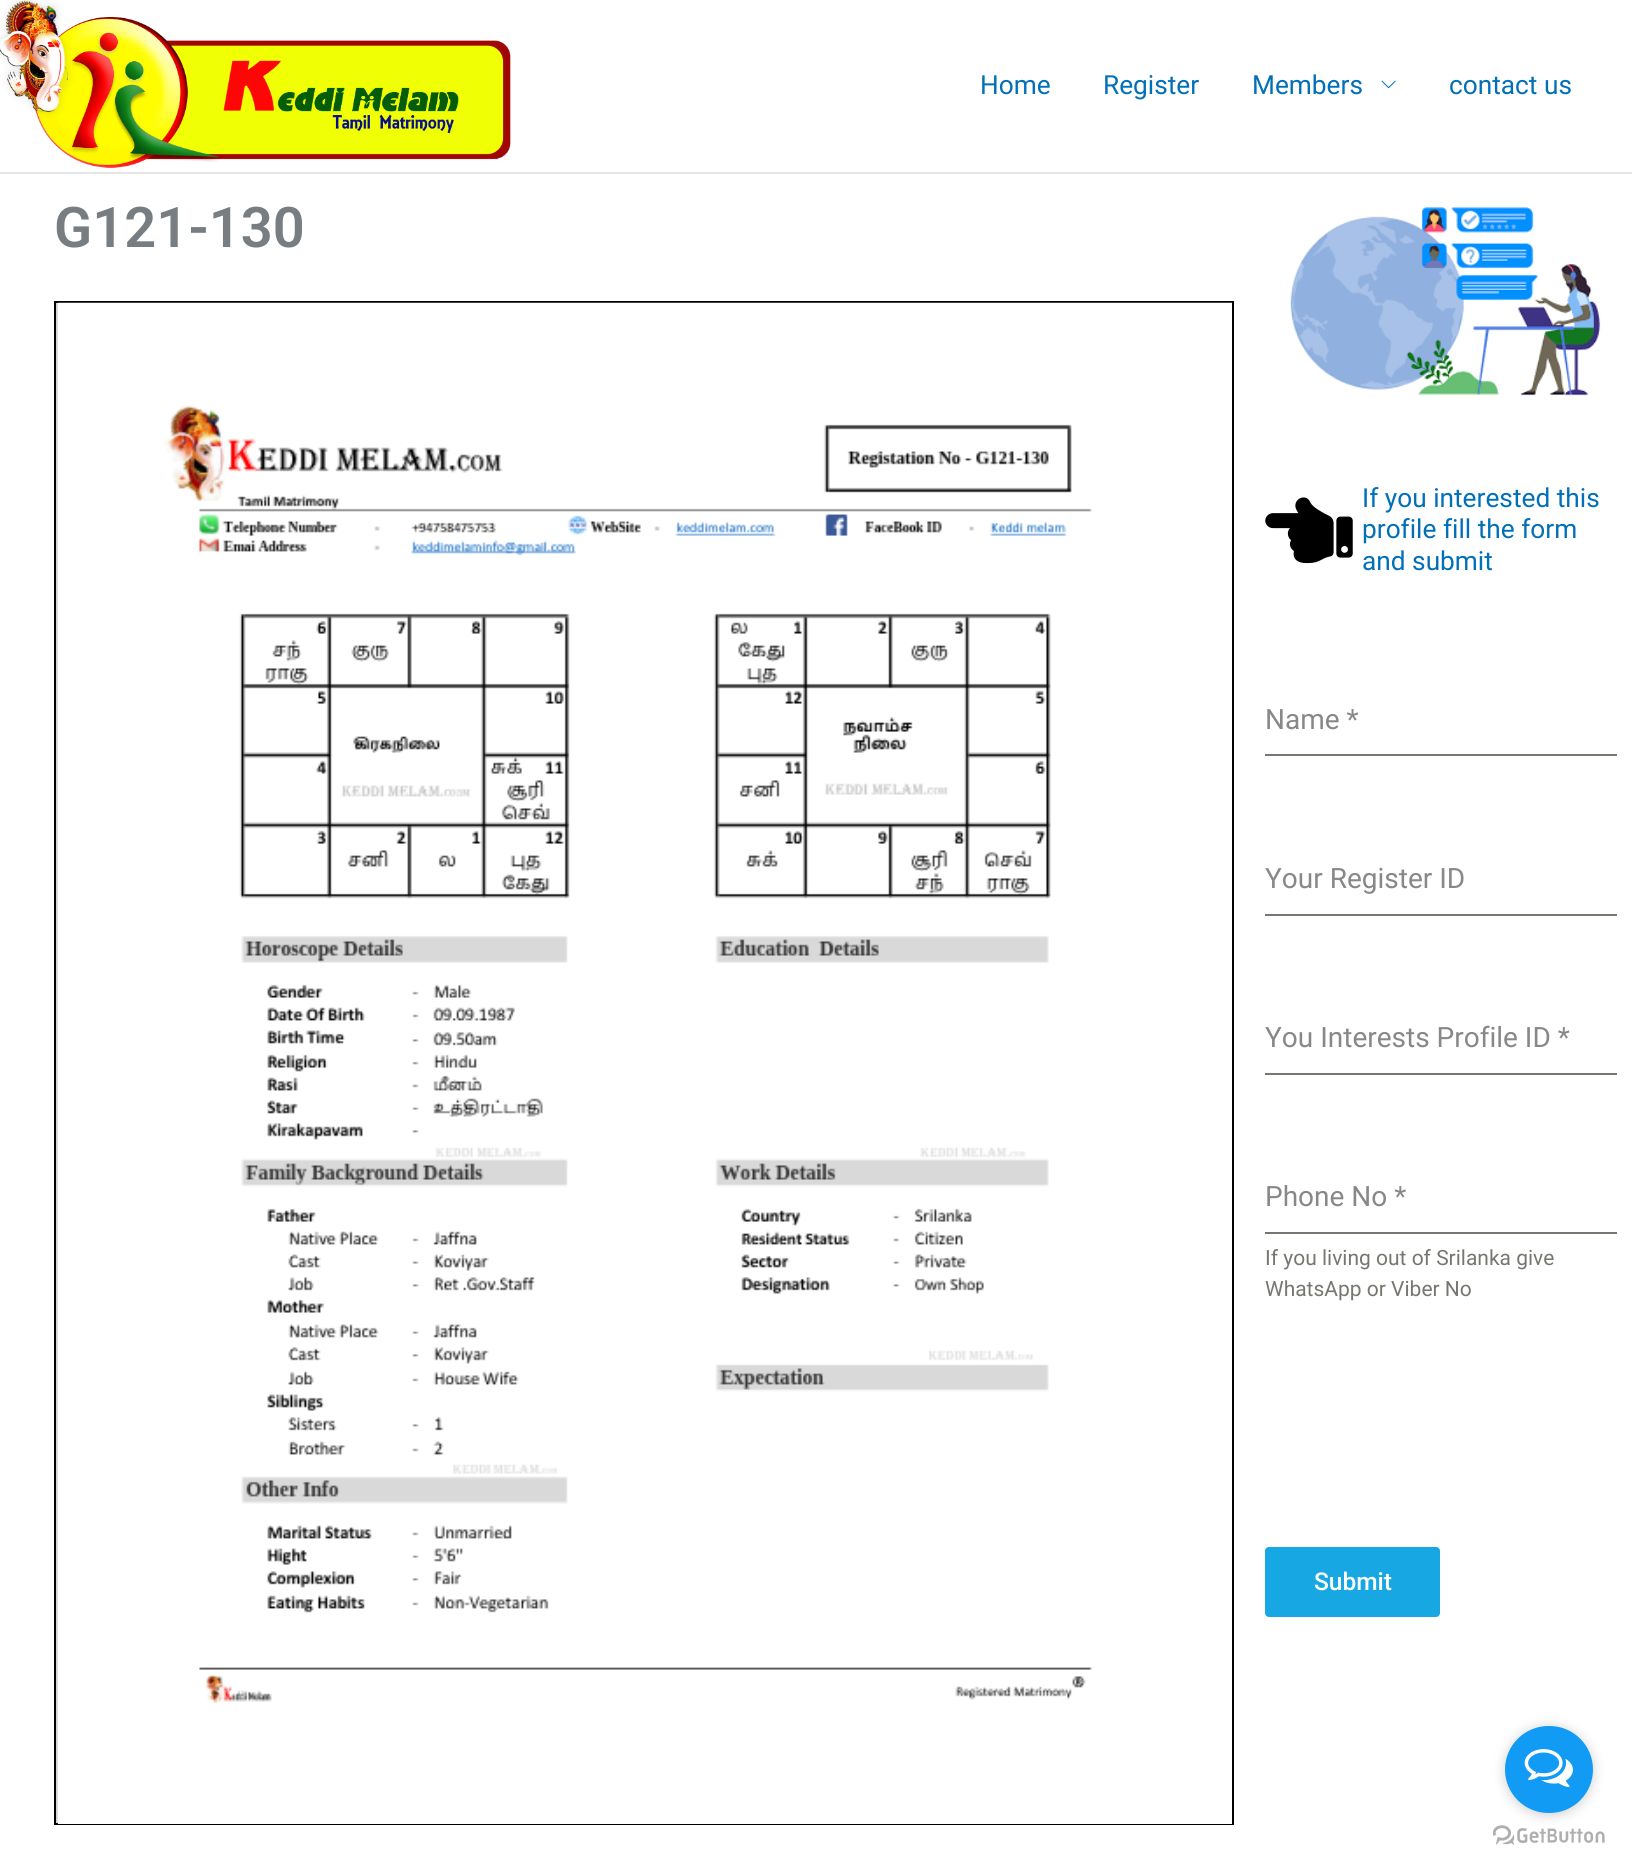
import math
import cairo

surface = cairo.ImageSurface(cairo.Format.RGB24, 1632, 1872)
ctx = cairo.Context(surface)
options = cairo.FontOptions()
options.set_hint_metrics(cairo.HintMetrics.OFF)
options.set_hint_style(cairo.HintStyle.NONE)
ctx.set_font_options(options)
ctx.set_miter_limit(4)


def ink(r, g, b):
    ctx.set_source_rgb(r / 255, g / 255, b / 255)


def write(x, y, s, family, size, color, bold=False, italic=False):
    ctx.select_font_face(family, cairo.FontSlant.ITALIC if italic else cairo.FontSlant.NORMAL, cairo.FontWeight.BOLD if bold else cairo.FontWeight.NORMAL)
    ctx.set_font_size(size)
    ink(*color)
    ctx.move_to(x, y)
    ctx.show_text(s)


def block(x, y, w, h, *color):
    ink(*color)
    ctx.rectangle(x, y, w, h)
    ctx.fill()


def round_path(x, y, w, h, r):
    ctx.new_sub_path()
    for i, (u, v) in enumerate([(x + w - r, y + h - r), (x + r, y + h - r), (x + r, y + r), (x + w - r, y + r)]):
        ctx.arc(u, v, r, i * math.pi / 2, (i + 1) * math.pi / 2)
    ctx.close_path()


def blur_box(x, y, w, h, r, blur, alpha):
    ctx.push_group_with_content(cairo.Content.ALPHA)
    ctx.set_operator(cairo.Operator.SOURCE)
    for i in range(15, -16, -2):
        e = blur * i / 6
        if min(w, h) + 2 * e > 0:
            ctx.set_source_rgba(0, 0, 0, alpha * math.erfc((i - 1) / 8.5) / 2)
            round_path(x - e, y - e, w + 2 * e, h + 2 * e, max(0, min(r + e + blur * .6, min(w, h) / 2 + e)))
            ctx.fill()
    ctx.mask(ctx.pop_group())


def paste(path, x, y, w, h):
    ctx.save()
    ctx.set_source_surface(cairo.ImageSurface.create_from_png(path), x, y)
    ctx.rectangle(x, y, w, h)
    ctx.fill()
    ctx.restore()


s1 = dict(family="Roboto", size=26.25, color=(1, 112, 185))
s2 = dict(family="Roboto SemiBold", size=56, color=(119, 125, 128))
s3 = dict(family="Roboto", size=28, color=(136, 136, 136))
s4 = dict(family="Roboto", size=21, color=(119, 119, 113))
s5 = dict(family="Roboto Medium", size=24.5, color=(255, 255, 255))

ink(255, 255, 255)
ctx.paint()
block(0, 172, 1632, 2, 229, 229, 229)
paste("pic1.png", 0, 0, 511, 169)
write(980, 94, "Home", **s1)
write(1103, 94, "Register", **s1)
write(1252, 94, "Members", **s1)
paste("pic2.png", 1381, 80, 15, 9)
write(1449, 94, "contact us", **s1)
write(54, 247, "G121-130", **s2)
block(56, 303, 2, 1520, 211, 211, 211)
ctx.rectangle(55, 302, 1178, 1522)
ink(0, 0, 0)
ctx.stroke()
block(58, 1823, 1174, 1, 255, 255, 255)
paste("pic3.png", 57, 302, 1175, 1522)
paste("pic4.png", 1290, 207, 311, 189)
paste("pic5.png", 1265, 497, 88, 67)
write(1362, 507, "If you interested this", **s1)
write(1362, 538, "profile fill the form", **s1)
write(1362, 570, "and submit", **s1)
write(1265, 729, "Name *", **s3)
block(1265, 754, 352, 2, 119, 119, 113)
write(1265, 888, "Your Register ID", **s3)
block(1265, 914, 352, 2, 119, 119, 113)
write(1265, 1047, "You Interests Profile ID *", **s3)
block(1265, 1073, 352, 2, 119, 119, 113)
write(1265, 1206, "Phone No *", **s3)
block(1265, 1232, 352, 2, 119, 119, 113)
write(1265, 1265, "If you living out of Srilanka give", **s4)
write(1265, 1296, "WhatsApp or Viber No", **s4)
ink(23, 168, 227)
round_path(1265, 1547, 175, 70, 4)
ctx.fill()
write(1314, 1590, "Submit", **s5)
paste("pic7.png", 1493, 1825, 112, 20)
ink(136, 136, 136)
blur_box(1505, 1727, 88, 88, 44, 6, 0.4)
ink(18, 155, 244)
round_path(1505, 1726, 88, 87, 43.5)
ctx.fill()
paste("pic6.png", 1524, 1749, 49, 38)
surface.write_to_png("screenshot.png")
